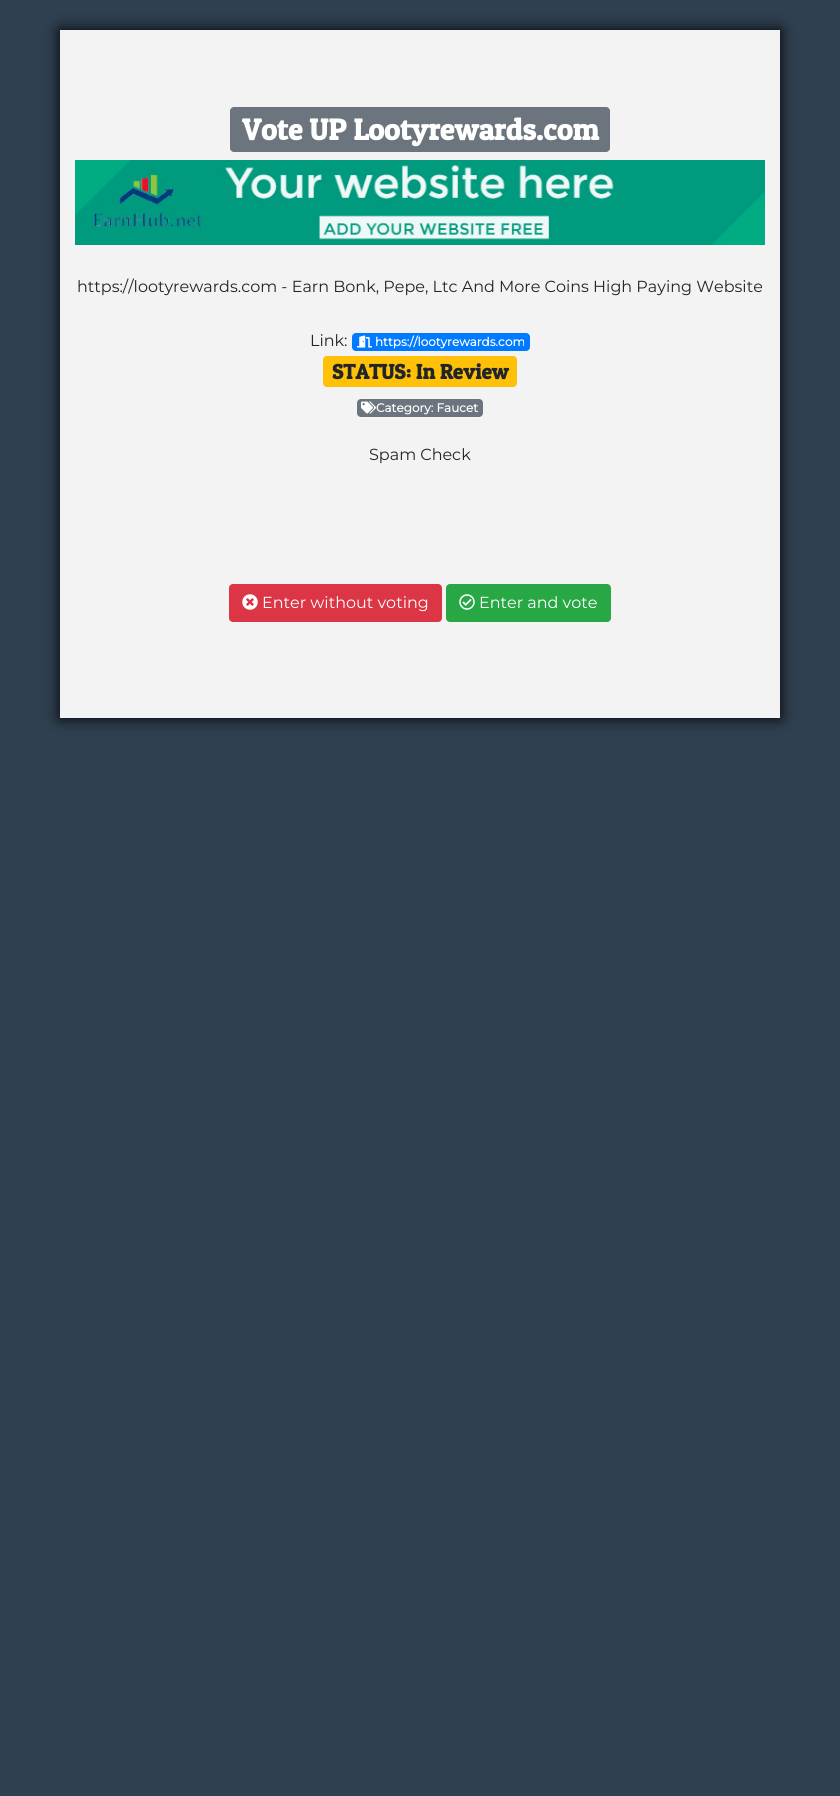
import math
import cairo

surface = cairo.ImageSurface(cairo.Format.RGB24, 840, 1796)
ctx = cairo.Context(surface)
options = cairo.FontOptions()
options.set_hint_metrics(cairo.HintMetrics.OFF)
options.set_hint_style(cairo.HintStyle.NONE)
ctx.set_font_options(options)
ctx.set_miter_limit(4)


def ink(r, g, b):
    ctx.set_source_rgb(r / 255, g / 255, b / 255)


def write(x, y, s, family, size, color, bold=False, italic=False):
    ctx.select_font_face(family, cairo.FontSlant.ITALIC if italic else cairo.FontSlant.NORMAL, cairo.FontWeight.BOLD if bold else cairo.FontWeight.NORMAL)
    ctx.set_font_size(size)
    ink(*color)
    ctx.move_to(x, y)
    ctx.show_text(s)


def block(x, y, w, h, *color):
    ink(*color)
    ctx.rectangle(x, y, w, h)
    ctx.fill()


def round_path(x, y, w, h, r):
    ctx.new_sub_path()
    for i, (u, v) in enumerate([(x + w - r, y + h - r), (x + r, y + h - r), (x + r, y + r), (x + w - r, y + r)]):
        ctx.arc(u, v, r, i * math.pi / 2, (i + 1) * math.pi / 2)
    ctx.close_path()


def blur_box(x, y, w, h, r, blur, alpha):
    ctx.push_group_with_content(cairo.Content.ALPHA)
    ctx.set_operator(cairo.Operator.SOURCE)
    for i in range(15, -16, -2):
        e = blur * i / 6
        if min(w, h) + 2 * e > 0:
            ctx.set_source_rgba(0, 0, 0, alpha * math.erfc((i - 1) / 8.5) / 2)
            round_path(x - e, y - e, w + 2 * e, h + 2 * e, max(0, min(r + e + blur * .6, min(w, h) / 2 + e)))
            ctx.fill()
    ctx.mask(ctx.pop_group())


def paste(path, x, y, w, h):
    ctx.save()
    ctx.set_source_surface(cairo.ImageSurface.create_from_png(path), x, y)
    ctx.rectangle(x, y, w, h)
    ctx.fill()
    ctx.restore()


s1 = dict(family="Patua One", size=30, color=(255, 255, 255), bold=True)
s2 = dict(family="Montserrat Thin", size=16, color=(33, 37, 41))
s3 = dict(family="Montserrat", size=12, color=(255, 255, 255), bold=True)
s4 = dict(family="Patua One", size=21, color=(33, 37, 41), bold=True)
s5 = dict(family="Montserrat Thin", size=16, color=(255, 255, 255))

ink(47, 64, 80)
ctx.paint()
ink(0, 0, 0)
blur_box(60, 30, 720, 688, 0, 7.5, 1)
block(60, 30, 720, 688, 243, 243, 244)
ink(108, 117, 125)
round_path(230, 107, 380, 45, 4)
ctx.fill()
write(242, 140, "Vote UP Lootyrewards.com", **s1)
paste("pic1.png", 75, 160, 690, 85)
write(77, 292, "https://lootyrewards.com - Earn Bonk, Pepe, Ltc And More Coins High Paying Website", **s2)
write(310, 346, "Link:", **s2)
ink(0, 123, 255)
round_path(352, 333, 178, 18, 4)
ctx.fill()
paste("pic2.png", 357, 335, 15, 13)
write(375, 346, "https://lootyrewards.com", **s3)
ink(255, 193, 7)
round_path(323, 356, 194, 31, 4)
ctx.fill()
write(332, 379, "STATUS: In Review", **s4)
ink(108, 117, 125)
round_path(357, 399, 126, 18, 4)
ctx.fill()
paste("pic3.png", 361, 401, 15, 13)
write(376, 412, "Category: Faucet", **s3)
write(369, 460, "Spam Check", **s2)
ink(220, 53, 69)
round_path(229.5, 584.5, 212, 37, 3.5)
ctx.fill_preserve()
ctx.set_line_width(1)
ctx.stroke()
paste("pic4.png", 242, 594, 16, 16)
write(262, 608, "Enter without voting", **s5)
ink(40, 167, 69)
round_path(446.5, 584.5, 164, 37, 3.5)
ctx.fill_preserve()
ctx.stroke()
paste("pic5.png", 459, 594, 16, 16)
write(479, 608, "Enter and vote", **s5)
surface.write_to_png("screenshot.png")
